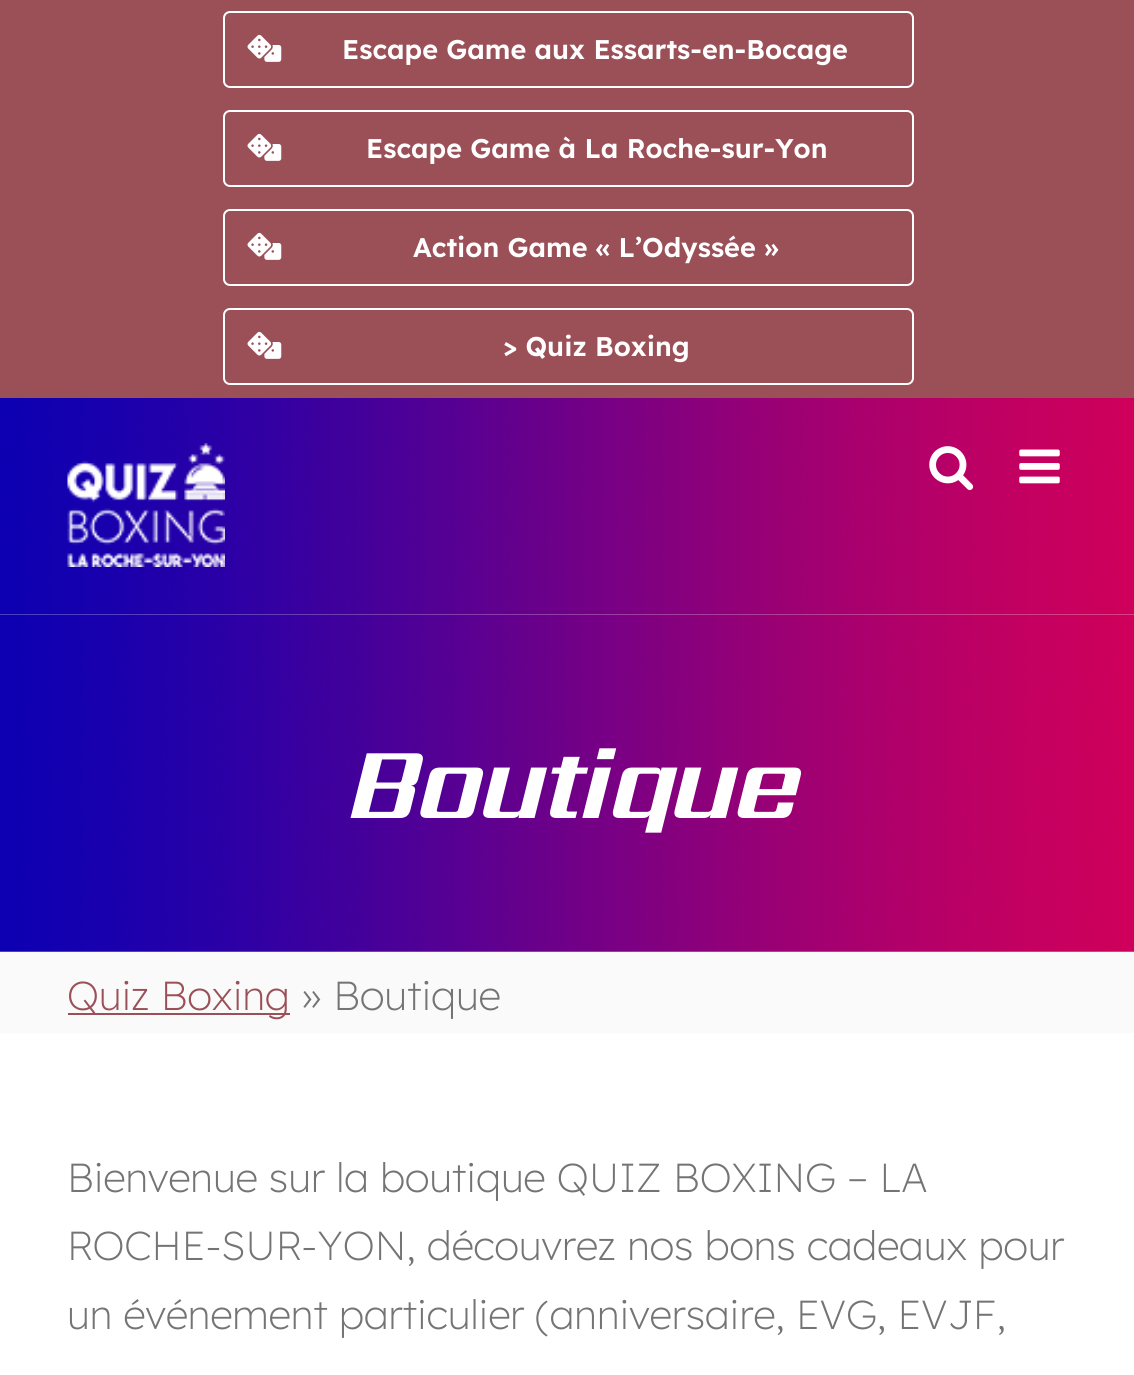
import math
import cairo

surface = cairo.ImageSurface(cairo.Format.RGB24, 1134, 1375)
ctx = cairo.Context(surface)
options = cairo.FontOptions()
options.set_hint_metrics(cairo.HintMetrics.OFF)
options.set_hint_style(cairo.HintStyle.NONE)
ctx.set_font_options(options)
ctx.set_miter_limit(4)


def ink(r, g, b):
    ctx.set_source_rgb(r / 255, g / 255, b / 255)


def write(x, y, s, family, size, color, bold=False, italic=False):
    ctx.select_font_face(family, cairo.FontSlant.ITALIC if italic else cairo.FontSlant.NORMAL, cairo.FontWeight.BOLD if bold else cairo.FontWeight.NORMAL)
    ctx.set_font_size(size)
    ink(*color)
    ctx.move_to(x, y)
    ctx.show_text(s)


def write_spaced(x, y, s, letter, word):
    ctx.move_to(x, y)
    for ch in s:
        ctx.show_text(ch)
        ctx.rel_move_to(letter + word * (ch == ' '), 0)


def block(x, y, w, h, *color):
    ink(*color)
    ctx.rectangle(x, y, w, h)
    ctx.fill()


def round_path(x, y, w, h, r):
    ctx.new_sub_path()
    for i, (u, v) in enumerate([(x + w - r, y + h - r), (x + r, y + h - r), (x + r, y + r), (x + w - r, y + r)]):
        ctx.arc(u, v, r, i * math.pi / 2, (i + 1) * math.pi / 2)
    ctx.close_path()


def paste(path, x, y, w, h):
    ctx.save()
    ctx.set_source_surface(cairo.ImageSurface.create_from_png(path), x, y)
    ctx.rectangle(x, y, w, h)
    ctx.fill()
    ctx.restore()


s1 = dict(family="Lexend Deca SemiBold", size=27, color=(255, 255, 255))
s2 = dict(family="Lexend Deca ExtraLight", size=40.5, color=(155, 80, 88))
s3 = dict(family="Lexend Deca ExtraLight", size=40.5, color=(116, 116, 116))

ink(255, 255, 255)
ctx.paint()
block(0, 0, 1134, 398, 155, 80, 88)
round_path(224, 12, 689, 75, 6)
ink(255, 255, 255)
ctx.stroke()
paste("pic1.png", 247, 34, 35, 28)
write(342, 59, "Escape Game aux Essarts-en-Bocage", **s1)
round_path(224, 111, 689, 75, 6)
ctx.stroke()
paste("pic1.png", 247, 133, 35, 28)
write(366, 158, "Escape Game à La Roche-sur-Yon", **s1)
round_path(224, 210, 689, 75, 6)
ctx.stroke()
paste("pic1.png", 247, 232, 35, 28)
write(413, 257, "Action Game « L’Odyssée »", **s1)
round_path(224, 309, 689, 75, 6)
ctx.stroke()
paste("pic1.png", 247, 331, 35, 28)
write(503, 356, "> Quiz Boxing", **s1)
paste("pic2.png", 0, 398, 1134, 216)
paste("pic3.png", 67, 443, 158, 124)
paste("pic4.png", 929, 446, 45, 45)
paste("pic5.png", 1019, 449, 41, 35)
paste("pic6.png", 0, 614, 1134, 338)
ctx.select_font_face("Sarpanch", cairo.FontSlant.ITALIC, cairo.FontWeight.BOLD)
ctx.set_font_size(104)
write_spaced(342, 818, "Boutique", -4.5, 0)
block(0, 952, 1134, 81, 250, 250, 250)
block(68, 1013, 222, 2, 155, 80, 88)
write(67, 1010, "Quiz Boxing", **s2)
write(302, 1010, "» Boutique", **s3)
write(67, 1192, "Bienvenue sur la boutique QUIZ BOXING – LA", **s3)
write(67, 1260, "ROCHE-SUR-YON, découvrez nos bons cadeaux pour", **s3)
write(67, 1329, "un événement particulier (anniversaire, EVG, EVJF,", **s3)
surface.write_to_png("screenshot.png")
